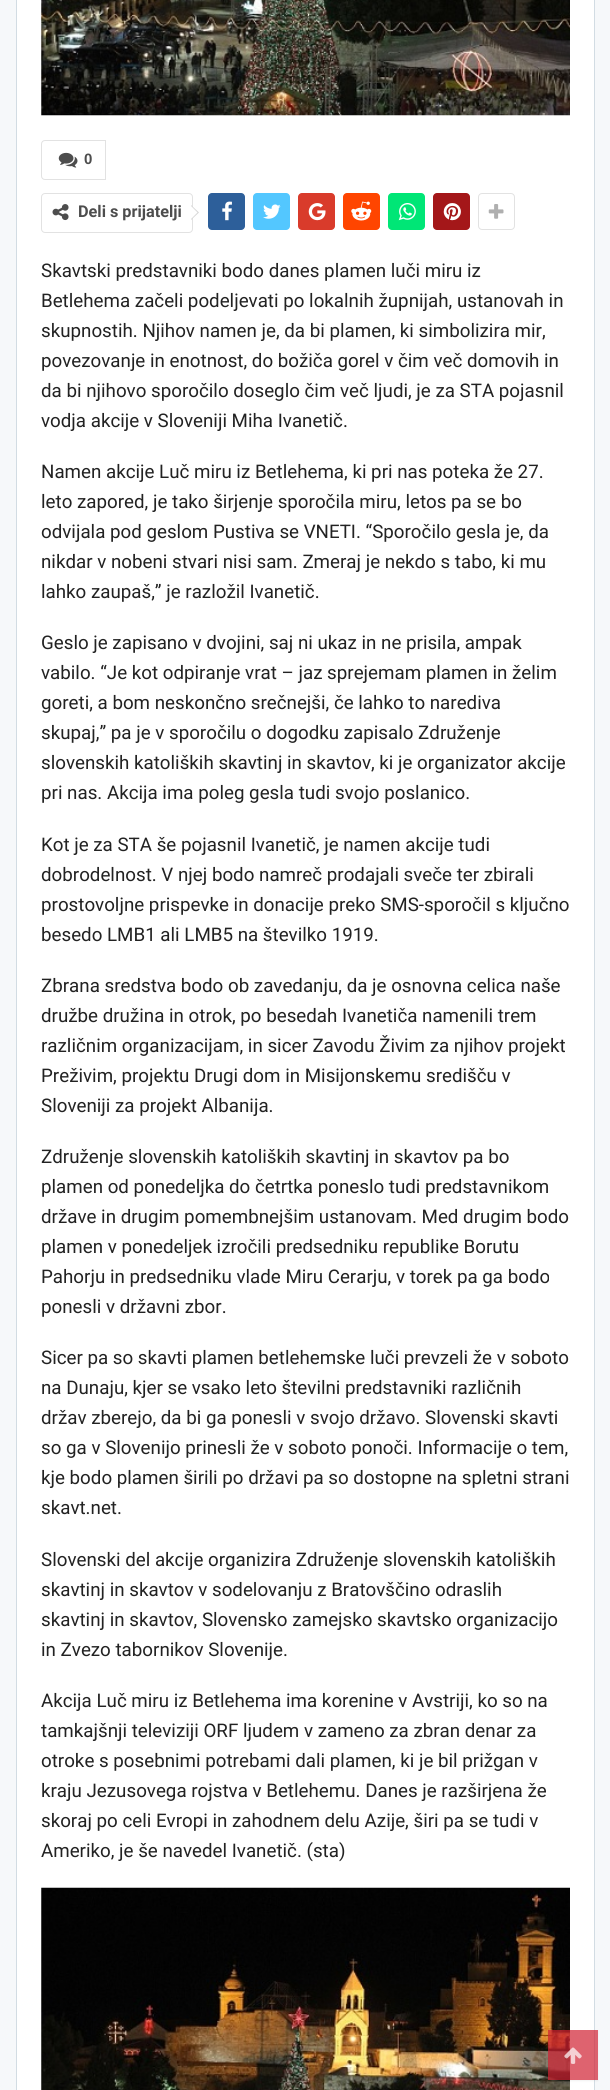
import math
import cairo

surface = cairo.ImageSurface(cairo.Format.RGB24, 610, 2090)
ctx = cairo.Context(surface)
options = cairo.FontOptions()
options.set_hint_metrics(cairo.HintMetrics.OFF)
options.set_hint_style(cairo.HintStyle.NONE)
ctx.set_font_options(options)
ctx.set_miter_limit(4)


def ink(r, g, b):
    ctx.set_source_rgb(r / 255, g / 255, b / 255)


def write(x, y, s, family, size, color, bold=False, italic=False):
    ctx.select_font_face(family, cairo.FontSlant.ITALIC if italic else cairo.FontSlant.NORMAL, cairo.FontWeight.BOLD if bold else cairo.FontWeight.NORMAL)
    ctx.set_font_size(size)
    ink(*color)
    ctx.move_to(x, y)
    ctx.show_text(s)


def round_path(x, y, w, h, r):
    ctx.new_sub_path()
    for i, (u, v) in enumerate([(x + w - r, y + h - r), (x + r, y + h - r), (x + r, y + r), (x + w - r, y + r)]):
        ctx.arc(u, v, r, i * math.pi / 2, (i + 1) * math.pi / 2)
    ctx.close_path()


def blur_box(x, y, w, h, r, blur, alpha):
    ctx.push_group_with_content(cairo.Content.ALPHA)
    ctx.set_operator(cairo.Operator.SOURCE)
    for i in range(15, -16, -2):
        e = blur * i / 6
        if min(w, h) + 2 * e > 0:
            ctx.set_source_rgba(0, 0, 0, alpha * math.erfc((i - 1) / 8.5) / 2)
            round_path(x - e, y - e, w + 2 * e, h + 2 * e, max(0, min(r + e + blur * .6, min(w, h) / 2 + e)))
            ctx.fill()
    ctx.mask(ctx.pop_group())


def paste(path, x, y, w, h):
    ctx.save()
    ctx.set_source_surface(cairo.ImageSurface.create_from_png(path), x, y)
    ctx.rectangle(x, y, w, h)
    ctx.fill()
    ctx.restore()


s1 = dict(family="Liberation Sans", size=15, color=(77, 77, 77), bold=True)
s2 = dict(family="Roboto", size=16.25, color=(77, 77, 77), bold=True)
s3 = dict(family="Roboto", size=18.75, color=(34, 34, 34))

ink(246, 248, 250)
ctx.paint()
ink(255, 255, 255)
ctx.rectangle(16.5, -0.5, 578, 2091)
ctx.fill_preserve()
ink(210, 220, 227)
ctx.set_line_width(1)
ctx.stroke()
paste("pic1.png", 41, 0, 529, 116)
ctx.new_path()
ctx.move_to(45, 140.5)
ctx.line_to(105.5, 140.5)
ctx.line_to(105.5, 179.5)
ctx.line_to(45, 179.5)
ctx.curve_to(43, 179.5, 41.5, 178, 41.5, 176)
ctx.line_to(41.5, 144)
ctx.curve_to(41.5, 142, 43, 140.5, 45, 140.5)
ctx.close_path()
ink(226, 226, 226)
ctx.stroke()
paste("pic2.png", 58, 152, 20, 16)
write(84, 164, "0", **s1)
round_path(41.5, 193.5, 151, 39, 3.5)
ink(226, 226, 226)
ctx.stroke()
paste("pic3.png", 52, 204, 17, 17)
write(78, 217, "Deli s prijatelji", **s2)
ink(215, 215, 215)
ctx.new_path()
ctx.move_to(191, 220)
ctx.line_to(191, 205)
ctx.line_to(199, 212.5)
ctx.close_path()
ctx.fill()
ink(255, 255, 255)
ctx.new_path()
ctx.move_to(191, 219)
ctx.line_to(191, 206)
ctx.line_to(197.5, 212.5)
ctx.close_path()
ctx.fill()
ink(45, 95, 154)
round_path(208, 193, 37, 37, 4)
ctx.fill()
paste("pic4.png", 222, 201, 10, 20)
ink(83, 199, 255)
round_path(253, 193, 37, 37, 4)
ctx.fill()
paste("pic5.png", 263, 204, 18, 15)
ink(217, 59, 43)
round_path(298, 193, 37, 37, 4)
ctx.fill()
paste("pic6.png", 308, 203, 18, 18)
ink(255, 69, 0)
round_path(343, 193, 37, 37, 4)
ctx.fill()
paste("pic7.png", 351, 201, 21, 20)
ink(0, 230, 118)
round_path(388, 193, 37, 37, 4)
ctx.fill()
paste("pic8.png", 398, 203, 18, 18)
ink(164, 23, 25)
round_path(433, 193, 37, 37, 4)
ctx.fill()
paste("pic9.png", 443, 203, 18, 18)
round_path(478.5, 193.5, 36, 36, 3.5)
ink(226, 226, 226)
ctx.stroke()
paste("pic10.png", 488, 204, 16, 15)
write(41, 277, "Skavtski predstavniki bodo danes plamen luči miru iz", **s3)
write(41, 307, "Betlehema začeli podeljevati po lokalnih župnijah, ustanovah in", **s3)
write(41, 337, "skupnostih. Njihov namen je, da bi plamen, ki simbolizira mir,", **s3)
write(41, 367, "povezovanje in enotnost, do božiča gorel v čim več domovih in", **s3)
write(41, 397, "da bi njihovo sporočilo doseglo čim več ljudi, je za STA pojasnil", **s3)
write(41, 427, "vodja akcije v Sloveniji Miha Ivanetič.", **s3)
write(41, 478, "Namen akcije Luč miru iz Betlehema, ki pri nas poteka že 27.", **s3)
write(41, 508, "leto zapored, je tako širjenje sporočila miru, letos pa se bo", **s3)
write(41, 538, "odvijala pod geslom Pustiva se VNETI. “Sporočilo gesla je, da", **s3)
write(41, 568, "nikdar v nobeni stvari nisi sam. Zmeraj je nekdo s tabo, ki mu", **s3)
write(41, 598, "lahko zaupaš,” je razložil Ivanetič.", **s3)
write(41, 649, "Geslo je zapisano v dvojini, saj ni ukaz in ne prisila, ampak", **s3)
write(41, 679, "vabilo. “Je kot odpiranje vrat – jaz sprejemam plamen in želim", **s3)
write(41, 709, "goreti, a bom neskončno srečnejši, če lahko to narediva", **s3)
write(41, 739, "skupaj,” pa je v sporočilu o dogodku zapisalo Združenje", **s3)
write(41, 769, "slovenskih katoliških skavtinj in skavtov, ki je organizator akcije", **s3)
write(41, 799, "pri nas. Akcija ima poleg gesla tudi svojo poslanico.", **s3)
write(41, 851, "Kot je za STA še pojasnil Ivanetič, je namen akcije tudi", **s3)
write(41, 881, "dobrodelnost. V njej bodo namreč prodajali sveče ter zbirali", **s3)
write(41, 911, "prostovoljne prispevke in donacije preko SMS-sporočil s ključno", **s3)
write(41, 941, "besedo LMB1 ali LMB5 na številko 1919.", **s3)
write(41, 992, "Zbrana sredstva bodo ob zavedanju, da je osnovna celica naše", **s3)
write(41, 1022, "družbe družina in otrok, po besedah Ivanetiča namenili trem", **s3)
write(41, 1052, "različnim organizacijam, in sicer Zavodu Živim za njihov projekt", **s3)
write(41, 1082, "Preživim, projektu Drugi dom in Misijonskemu središču v", **s3)
write(41, 1112, "Sloveniji za projekt Albanija.", **s3)
write(41, 1163, "Združenje slovenskih katoliških skavtinj in skavtov pa bo", **s3)
write(41, 1193, "plamen od ponedeljka do četrtka poneslo tudi predstavnikom", **s3)
write(41, 1223, "države in drugim pomembnejšim ustanovam. Med drugim bodo", **s3)
write(41, 1253, "plamen v ponedeljek izročili predsedniku republike Borutu", **s3)
write(41, 1283, "Pahorju in predsedniku vlade Miru Cerarju, v torek pa ga bodo", **s3)
write(41, 1313, "ponesli v državni zbor.", **s3)
write(41, 1364, "Sicer pa so skavti plamen betlehemske luči prevzeli že v soboto", **s3)
write(41, 1394, "na Dunaju, kjer se vsako leto številni predstavniki različnih", **s3)
write(41, 1424, "držav zberejo, da bi ga ponesli v svojo državo. Slovenski skavti", **s3)
write(41, 1454, "so ga v Slovenijo prinesli že v soboto ponoči. Informacije o tem,", **s3)
write(41, 1484, "kje bodo plamen širili po državi pa so dostopne na spletni strani", **s3)
write(41, 1514, "skavt.net.", **s3)
write(41, 1566, "Slovenski del akcije organizira Združenje slovenskih katoliških", **s3)
write(41, 1596, "skavtinj in skavtov v sodelovanju z Bratovščino odraslih", **s3)
write(41, 1626, "skavtinj in skavtov, Slovensko zamejsko skavtsko organizacijo", **s3)
write(41, 1656, "in Zvezo tabornikov Slovenije.", **s3)
write(41, 1707, "Akcija Luč miru iz Betlehema ima korenine v Avstriji, ko so na", **s3)
write(41, 1737, "tamkajšnji televiziji ORF ljudem v zameno za zbran denar za", **s3)
write(41, 1767, "otroke s posebnimi potrebami dali plamen, ki je bil prižgan v", **s3)
write(41, 1797, "kraju Jezusovega rojstva v Betlehemu. Danes je razširjena že", **s3)
write(41, 1827, "skoraj po celi Evropi in zahodnem delu Azije, širi pa se tudi v", **s3)
write(41, 1857, "Ameriko, je še navedel Ivanetič. (sta)", **s3)
paste("pic11.png", 41, 1887, 529, 203)
ctx.save()
ctx.set_fill_rule(cairo.FillRule.EVEN_ODD)
ctx.new_path()
ctx.move_to(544, 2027)
ctx.line_to(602, 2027)
ctx.line_to(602, 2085)
ctx.line_to(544, 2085)
ctx.close_path()
ctx.move_to(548, 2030)
ctx.line_to(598, 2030)
ctx.line_to(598, 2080)
ctx.line_to(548, 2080)
ctx.close_path()
ctx.clip()
ink(0, 0, 0)
blur_box(548, 2031, 50, 50, 0, 1, 0.06)
ctx.restore()
ctx.set_source_rgba(0.82, 0.129, 0.2, 0.7)
ctx.rectangle(548, 2030, 50, 50)
ctx.fill()
paste("pic12.png", 564, 2047, 18, 17)
surface.write_to_png("screenshot.png")
